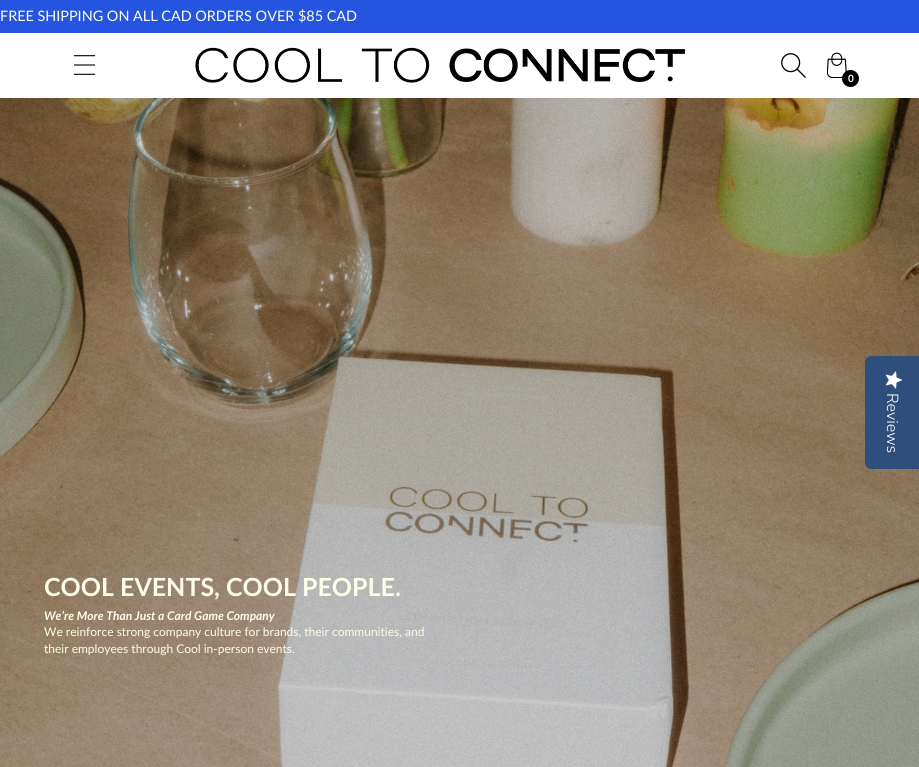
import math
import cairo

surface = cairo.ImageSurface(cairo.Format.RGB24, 919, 767)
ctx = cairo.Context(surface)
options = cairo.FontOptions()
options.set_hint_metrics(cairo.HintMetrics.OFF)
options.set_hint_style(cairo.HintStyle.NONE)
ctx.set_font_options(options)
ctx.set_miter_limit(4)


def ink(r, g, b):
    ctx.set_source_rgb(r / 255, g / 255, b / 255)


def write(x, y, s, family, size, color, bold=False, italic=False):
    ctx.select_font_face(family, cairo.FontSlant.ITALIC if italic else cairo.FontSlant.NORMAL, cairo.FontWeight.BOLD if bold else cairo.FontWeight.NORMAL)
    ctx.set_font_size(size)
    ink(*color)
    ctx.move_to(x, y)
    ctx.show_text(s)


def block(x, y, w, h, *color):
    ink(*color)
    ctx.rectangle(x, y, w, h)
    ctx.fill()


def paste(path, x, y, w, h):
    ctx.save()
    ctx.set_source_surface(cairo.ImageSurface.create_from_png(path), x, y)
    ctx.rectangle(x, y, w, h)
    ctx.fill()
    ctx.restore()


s1 = dict(family="Lato", size=14.4, color=(253, 253, 233))
s2 = dict(family="Lato", size=10, color=(255, 255, 255), bold=True)
s3 = dict(family="Nunito Sans Light", size=16, color=(255, 255, 255))
s4 = dict(family="Lato", size=25, color=(253, 253, 233), bold=True)
s5 = dict(family="Lato", size=12, color=(253, 253, 233), bold=True, italic=True)
s6 = dict(family="Lato", size=12, color=(253, 253, 233))

ink(255, 255, 255)
ctx.paint()
block(0, 0, 919, 33, 37, 85, 224)
write(0, 21, "FREE SHIPPING ON ALL CAD ORDERS OVER $85 CAD", **s1)
paste("pic1.png", 74, 55, 22, 20)
paste("pic2.png", 195, 47, 491, 36)
paste("pic3.png", 781, 53, 25, 25)
paste("pic4.png", 827, 52, 20, 26)
ink(0, 0, 0)
ctx.arc(850.5, 78.5, 8.5, 0, 2 * math.pi)
ctx.fill()
write(848, 82, "0", **s2)
paste("pic6.png", 0, 98, 919, 669)
ink(46, 79, 124)
ctx.new_path()
ctx.move_to(919, 356)
ctx.line_to(919, 469)
ctx.line_to(871, 469)
ctx.curve_to(868, 469, 865, 466, 865, 463)
ctx.line_to(865, 362)
ctx.curve_to(865, 359, 868, 356, 871, 356)
ctx.close_path()
ctx.fill()
paste("pic5.png", 885, 371, 18, 18)
ctx.save()
ctx.translate(887, 393)
ctx.rotate(90 * math.pi / 180)
write(0, 0, "Reviews", **s3)
ctx.restore()
write(44, 596, "COOL EVENTS, COOL PEOPLE.", **s4)
write(44, 620, "We’re More Than Just a Card Game Company", **s5)
write(44, 636, "We reinforce strong company culture for brands, their communities, and", **s6)
write(44, 653, "their employees through Cool in-person events.", **s6)
surface.write_to_png("screenshot.png")
